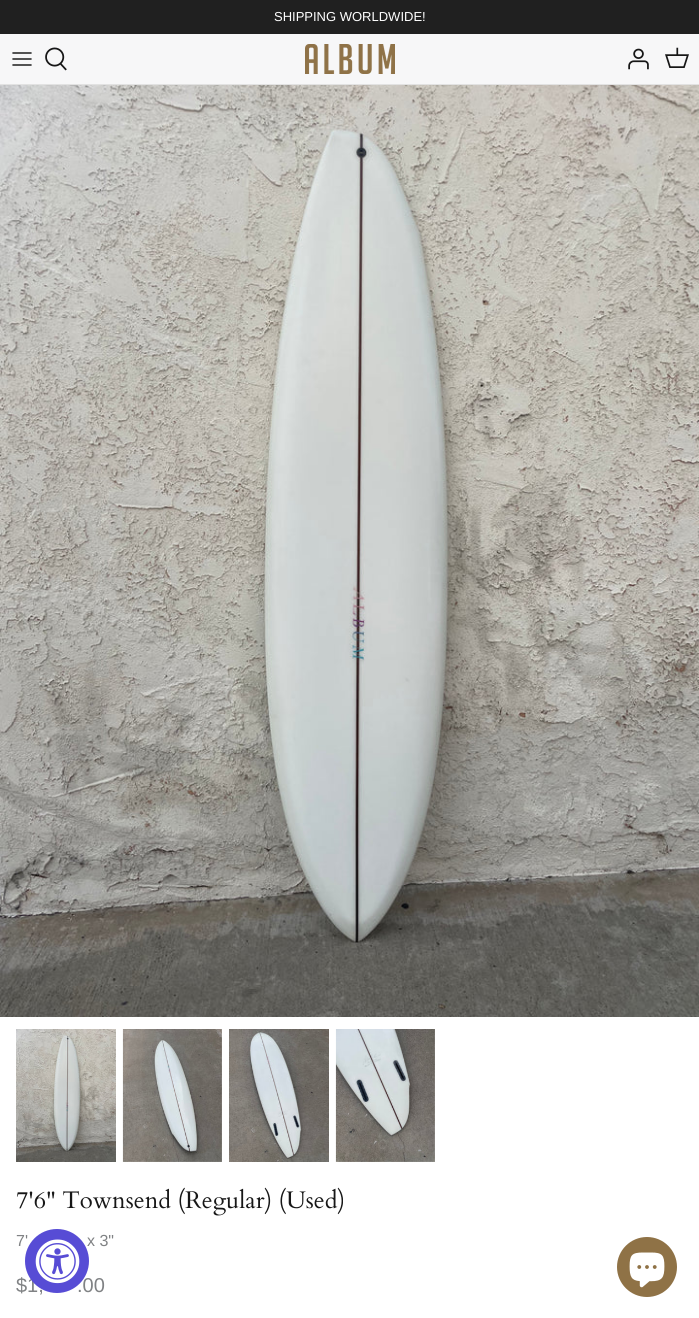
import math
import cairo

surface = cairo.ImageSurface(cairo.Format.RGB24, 699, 1318)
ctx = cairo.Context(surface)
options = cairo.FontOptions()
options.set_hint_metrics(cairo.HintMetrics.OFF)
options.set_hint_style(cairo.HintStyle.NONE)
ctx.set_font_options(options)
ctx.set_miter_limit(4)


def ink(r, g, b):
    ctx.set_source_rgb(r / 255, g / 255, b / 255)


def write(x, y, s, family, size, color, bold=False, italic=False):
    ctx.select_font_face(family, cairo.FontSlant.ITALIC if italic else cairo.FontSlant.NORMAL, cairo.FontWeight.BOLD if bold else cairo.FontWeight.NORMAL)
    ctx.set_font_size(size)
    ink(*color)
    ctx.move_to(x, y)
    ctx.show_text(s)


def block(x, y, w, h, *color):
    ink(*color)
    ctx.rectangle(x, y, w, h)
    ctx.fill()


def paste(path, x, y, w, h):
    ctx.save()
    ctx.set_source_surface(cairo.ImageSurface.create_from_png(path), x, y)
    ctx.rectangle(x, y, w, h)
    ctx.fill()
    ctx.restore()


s1 = dict(family="Arimo", size=13, color=(255, 255, 255))
s2 = dict(family="Cardo", size=24, color=(23, 23, 23))
s3 = dict(family="Arimo", size=16, color=(128, 130, 132))
s4 = dict(family="Arimo", size=20, color=(128, 130, 132))

ink(255, 255, 255)
ctx.paint()
block(0, 0, 699, 34, 32, 32, 32)
write(274, 21, "SHIPPING WORLDWIDE!", **s1)
block(0, 34, 699, 50, 247, 247, 248)
block(0, 84, 699, 1, 226, 226, 226)
paste("pic1.png", 12, 52, 20, 14)
paste("pic2.png", 45, 47, 22, 24)
paste("pic3.png", 305, 44, 90, 30)
paste("pic4.png", 628, 48, 21, 22)
paste("pic5.png", 665, 47, 24, 21)
paste("pic6.png", 0, 85, 699, 932)
paste("pic7.png", 16, 1029, 100, 133)
paste("pic8.png", 122, 1029, 100, 133)
paste("pic9.png", 229, 1029, 100, 133)
paste("pic10.png", 335, 1029, 100, 133)
write(16, 1208, "7'6\" Townsend (Regular) (Used)", **s2)
write(16, 1246, "7'", **s3)
write(87, 1246, "x 3\"", **s3)
write(16, 1292, "$1,", **s4)
write(77, 1292, ".00", **s4)
ink(87, 76, 213)
ctx.new_path()
ctx.arc(57, 1261, 32, 0, 2 * math.pi)
ctx.fill()
paste("pic11.png", 35, 1239, 45, 45)
ink(143, 114, 70)
ctx.arc(647, 1267, 30, 0, 2 * math.pi)
ctx.fill()
paste("pic12.png", 629, 1252, 36, 36)
surface.write_to_png("screenshot.png")
